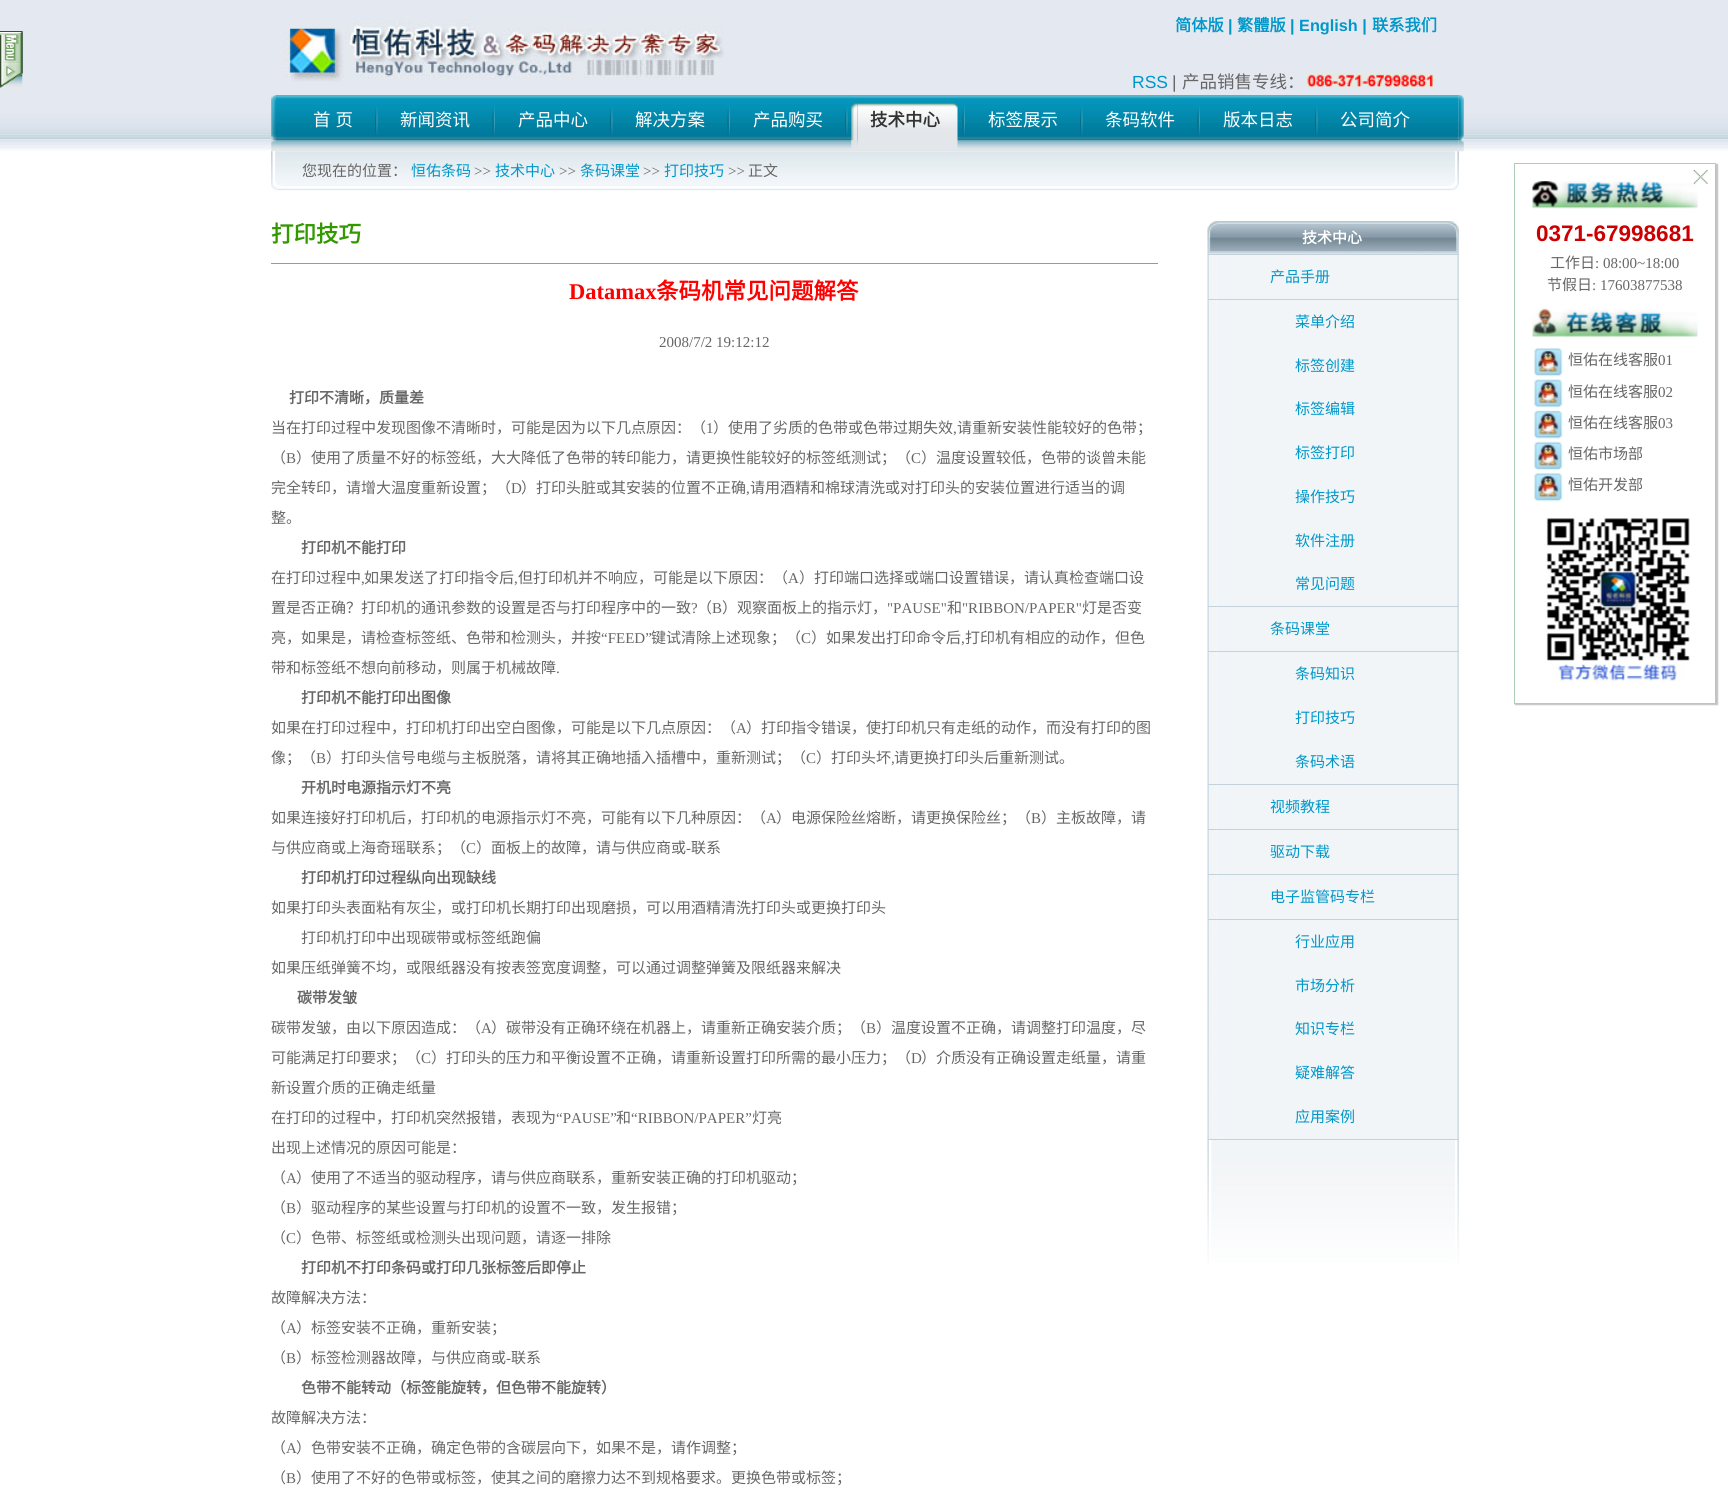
import math
import cairo

surface = cairo.ImageSurface(cairo.Format.RGB24, 1728, 1505)
ctx = cairo.Context(surface)
options = cairo.FontOptions()
options.set_hint_metrics(cairo.HintMetrics.OFF)
options.set_hint_style(cairo.HintStyle.NONE)
ctx.set_font_options(options)
ctx.set_miter_limit(4)


def ink(r, g, b):
    ctx.set_source_rgb(r / 255, g / 255, b / 255)


def write(x, y, s, family, size, color, bold=False, italic=False):
    ctx.select_font_face(family, cairo.FontSlant.ITALIC if italic else cairo.FontSlant.NORMAL, cairo.FontWeight.BOLD if bold else cairo.FontWeight.NORMAL)
    ctx.set_font_size(size)
    ink(*color)
    ctx.move_to(x, y)
    ctx.show_text(s)


def write_spaced(x, y, s, letter, word):
    ctx.move_to(x, y)
    for ch in s:
        ctx.show_text(ch)
        ctx.rel_move_to(letter + word * (ch == ' '), 0)


def block(x, y, w, h, *color):
    ink(*color)
    ctx.rectangle(x, y, w, h)
    ctx.fill()


def round_path(x, y, w, h, r):
    ctx.new_sub_path()
    for i, (u, v) in enumerate([(x + w - r, y + h - r), (x + r, y + h - r), (x + r, y + r), (x + w - r, y + r)]):
        ctx.arc(u, v, r, i * math.pi / 2, (i + 1) * math.pi / 2)
    ctx.close_path()


def blur_box(x, y, w, h, r, blur, alpha):
    ctx.push_group_with_content(cairo.Content.ALPHA)
    ctx.set_operator(cairo.Operator.SOURCE)
    for i in range(15, -16, -2):
        e = blur * i / 6
        if min(w, h) + 2 * e > 0:
            ctx.set_source_rgba(0, 0, 0, alpha * math.erfc((i - 1) / 8.5) / 2)
            round_path(x - e, y - e, w + 2 * e, h + 2 * e, max(0, min(r + e + blur * .6, min(w, h) / 2 + e)))
            ctx.fill()
    ctx.mask(ctx.pop_group())


def paste(path, x, y, w, h):
    ctx.save()
    ctx.set_source_surface(cairo.ImageSurface.create_from_png(path), x, y)
    ctx.rectangle(x, y, w, h)
    ctx.fill()
    ctx.restore()


s1 = dict(family="Noto Sans CJK SC", size=16.25, color=(0, 151, 201), bold=True)
s2 = dict(family="Liberation Sans", size=16.25, color=(0, 151, 201), bold=True)
s3 = dict(family="Liberation Sans", size=17.5, color=(0, 151, 201))
s4 = dict(family="Liberation Sans", size=17.5, color=(102, 102, 102))
s5 = dict(family="Noto Sans CJK SC", size=17.5, color=(102, 102, 102))
s6 = dict(family="Noto Sans CJK SC", size=17.5, color=(255, 255, 255))
s7 = dict(family="Noto Sans CJK SC", size=17.5, color=(51, 51, 51), bold=True)
s8 = dict(family="Noto Sans CJK SC", size=15, color=(102, 102, 102))
s9 = dict(family="Noto Sans CJK SC", size=15, color=(0, 151, 201))
s10 = dict(family="Liberation Serif", size=15, color=(102, 102, 102))
s11 = dict(family="Noto Sans CJK SC", size=22.5, color=(51, 153, 0), bold=True)
s12 = dict(family="Liberation Serif", size=22.5, color=(255, 0, 0), bold=True)
s13 = dict(family="Noto Sans CJK SC", size=22.5, color=(255, 0, 0), bold=True)
s14 = dict(family="Noto Sans CJK SC", size=15, color=(102, 102, 102), bold=True)
s15 = dict(family="Noto Sans CJK SC", size=15, color=(255, 255, 255), bold=True)
s16 = dict(family="Liberation Sans", size=22.5, color=(204, 0, 0), bold=True)

ink(255, 255, 255)
ctx.paint()
paste("pic3.png", 0, 0, 1728, 151)
paste("pic1.png", 0, 31, 23, 57)
paste("pic2.png", 0, 31, 23, 57)
paste("pic4.png", 284, 19, 440, 63)
write(1175, 31, "简体版", **s1)
write(1228, 31, "|", **s2)
write(1237, 31, "繁體版", **s1)
write(1290, 31, "| English |", **s2)
write(1372, 31, "联系我们", **s1)
write(1132, 88, "RSS", **s3)
write(1172, 88, "|", **s4)
write(1182, 88, "产品销售专线：", **s5)
paste("pic5.png", 1305, 72, 131, 16)
paste("pic6.png", 271, 95, 7, 57)
paste("pic7.png", 1458, 95, 6, 57)
paste("pic8.png", 276, 95, 1183, 57)
ink(255, 255, 255)
write_spaced(313, 126, "首 页", 0, 1)
paste("pic9.png", 375, 107, 3, 29)
write(400, 126, "新闻资讯", **s6)
paste("pic10.png", 492, 105, 3, 31)
write(518, 126, "产品中心", **s6)
paste("pic9.png", 610, 107, 3, 29)
write(635, 126, "解决方案", **s6)
paste("pic10.png", 727, 105, 3, 31)
write(753, 126, "产品购买", **s6)
paste("pic9.png", 845, 107, 3, 29)
paste("pic11.png", 851, 95, 7, 54)
paste("pic12.png", 857, 95, 101, 54)
write(870, 126, "技术中心", **s7)
paste("pic10.png", 962, 105, 3, 31)
write(988, 126, "标签展示", **s6)
paste("pic9.png", 1080, 107, 3, 29)
write(1105, 126, "条码软件", **s6)
paste("pic10.png", 1197, 105, 3, 31)
write(1223, 126, "版本日志", **s6)
paste("pic9.png", 1315, 107, 3, 29)
write(1340, 126, "公司简介", **s6)
paste("pic13.png", 271, 151, 1188, 40)
write(302, 176, "您现在的位置：", **s8)
write(411, 176, "恒佑条码", **s9)
write(474, 176, ">>", **s10)
write(495, 176, "技术中心", **s9)
write(559, 176, ">>", **s10)
write(580, 176, "条码课堂", **s9)
write(643, 176, ">>", **s10)
write(664, 176, "打印技巧", **s9)
write(728, 176, ">>", **s10)
write(748, 176, "正文", **s8)
write(271, 242, "打印技巧", **s11)
block(271, 263, 887, 1, 153, 153, 153)
write(569, 299, "Datamax", **s12)
write(656, 299, "条码机常见问题解答", **s13)
write(659, 347, "2008/7/2 19:12:12", **s10)
write(289, 403, "打印不清晰，质量差", **s14)
write(271, 433, "当在打印过程中发现图像不清晰时，可能是因为以下几点原因：（", **s8)
write(706, 433, "1", **s10)
write(713, 433, "）使用了劣质的色带或色带过期失效", **s8)
write(957, 433, "请重新安装性能较好的色带；", **s8)
write(953, 433, ",", **s10)
write(271, 463, "（", **s8)
write(286, 463, "B", **s10)
write(296, 463, "）使用了质量不好的标签纸，大大降低了色带的转印能力，请更换性能较好的标签纸测试；（", **s8)
write(911, 463, "C", **s10)
write(921, 463, "）温度设置较低，色带的谈曾未能", **s8)
write(271, 493, "完全转印，请增大温度重新设置；（", **s8)
write(511, 493, "D", **s10)
write(521, 493, "）打印头脏或其安装的位置不正确", **s8)
write(750, 493, "请用酒精和棉球清洗或对打印头的安装位置进行适当的调", **s8)
write(746, 493, ",", **s10)
write(271, 523, "整。", **s8)
write(301, 553, "打印机不能打印", **s14)
write(271, 583, "在打印过程中", **s8)
write(364, 583, "如果发送了打印指令后", **s8)
write(518, 583, "但打印机并不响应，可能是以下原因：（", **s8)
write(788, 583, "A", **s10)
write(799, 583, "）打印端口选择或端口设置错误，请认真检查端口设", **s8)
write(361, 583, ",", **s10)
write(514, 583, ",", **s10)
write(271, 613, "置是否正确？打印机的通讯参数的设置是否与打印程序中的一致", **s8)
write(691, 613, "?", **s10)
write(697, 613, "（", **s8)
write(712, 613, "B", **s10)
write(722, 613, "）观察面板上的指示灯，", **s8)
write(887, 613, "\"PAUSE\"", **s10)
write(947, 613, "和", **s8)
write(962, 613, "\"RIBBON/PAPER\"", **s10)
write(1082, 613, "灯是否变", **s8)
write(271, 643, "亮，如果是，请检查标签纸、色带和检测头，并按", **s8)
write(601, 643, "“FEED”", **s10)
write(651, 643, "键试清除上述现象；（", **s8)
write(801, 643, "C", **s10)
write(811, 643, "）如果发出打印命令后", **s8)
write(961, 643, ",", **s10)
write(965, 643, "打印机有相应的动作，但色", **s8)
write(271, 673, "带和标签纸不想向前移动，则属于机械故障", **s8)
write(556, 673, ".", **s10)
write(301, 703, "打印机不能打印出图像", **s14)
write(271, 733, "如果在打印过程中，打印机打印出空白图像，可能是以下几点原因：（", **s8)
write(736, 733, "A", **s10)
write(746, 733, "）打印指令错误，使打印机只有走纸的动作，而没有打印的图", **s8)
write(271, 763, "像；（", **s8)
write(316, 763, "B", **s10)
write(326, 763, "）打印头信号电缆与主板脱落，请将其正确地插入插槽中，重新测试；（", **s8)
write(806, 763, "C", **s10)
write(816, 763, "）打印头坏", **s8)
write(891, 763, ",", **s10)
write(894, 763, "请更换打印头后重新测试。", **s8)
write(301, 793, "开机时电源指示灯不亮", **s14)
write(271, 823, "如果连接好打印机后，打印机的电源指示灯不亮，可能有以下几种原因：（", **s8)
write(766, 823, "A", **s10)
write(776, 823, "）电源保险丝熔断，请更换保险丝；（", **s8)
write(1031, 823, "B", **s10)
write(1041, 823, "）主板故障，请", **s8)
write(271, 853, "与供应商或上海奇瑶联系；（", **s8)
write(466, 853, "C", **s10)
write(476, 853, "）面板上的故障，请与供应商或", **s8)
write(686, 853, "-", **s10)
write(691, 853, "联系", **s8)
write(301, 883, "打印机打印过程纵向出现缺线", **s14)
write(271, 913, "如果打印头表面粘有灰尘，或打印机长期打印出现磨损，可以用酒精清洗打印头或更换打印头", **s8)
write(301, 943, "打印机打印中出现碳带或标签纸跑偏", **s8)
write(271, 973, "如果压纸弹簧不均，或限纸器没有按表签宽度调整，可以通过调整弹簧及限纸器来解决", **s8)
write(297, 1003, "碳带发皱", **s14)
write(271, 1033, "碳带发皱，由以下原因造成：（", **s8)
write(481, 1033, "A", **s10)
write(491, 1033, "）碳带没有正确环绕在机器上，请重新正确安装介质；（", **s8)
write(866, 1033, "B", **s10)
write(876, 1033, "）温度设置不正确，请调整打印温度，尽", **s8)
write(271, 1063, "可能满足打印要求；（", **s8)
write(421, 1063, "C", **s10)
write(431, 1063, "）打印头的压力和平衡设置不正确，请重新设置打印所需的最小压力；（", **s8)
write(911, 1063, "D", **s10)
write(921, 1063, "）介质没有正确设置走纸量，请重", **s8)
write(271, 1093, "新设置介质的正确走纸量", **s8)
write(271, 1123, "在打印的过程中，打印机突然报错，表现为", **s8)
write(556, 1123, "“PAUSE”", **s10)
write(616, 1123, "和", **s8)
write(631, 1123, "“RIBBON/PAPER”", **s10)
write(752, 1123, "灯亮", **s8)
write(271, 1153, "出现上述情况的原因可能是：", **s8)
write(271, 1183, "（", **s8)
write(286, 1183, "A", **s10)
write(296, 1183, "）使用了不适当的驱动程序，请与供应商联系，重新安装正确的打印机驱动；", **s8)
write(271, 1213, "（", **s8)
write(286, 1213, "B", **s10)
write(296, 1213, "）驱动程序的某些设置与打印机的设置不一致，发生报错；", **s8)
write(271, 1243, "（", **s8)
write(286, 1243, "C", **s10)
write(296, 1243, "）色带、标签纸或检测头出现问题，请逐一排除", **s8)
write(301, 1273, "打印机不打印条码或打印几张标签后即停止", **s14)
write(271, 1303, "故障解决方法：", **s8)
write(271, 1333, "（", **s8)
write(286, 1333, "A", **s10)
write(296, 1333, "）标签安装不正确，重新安装；", **s8)
write(271, 1363, "（", **s8)
write(286, 1363, "B", **s10)
write(296, 1363, "）标签检测器故障，与供应商或", **s8)
write(506, 1363, "-", **s10)
write(511, 1363, "联系", **s8)
write(301, 1393, "色带不能转动（标签能旋转，但色带不能旋转）", **s14)
write(271, 1423, "故障解决方法：", **s8)
write(271, 1453, "（", **s8)
write(286, 1453, "A", **s10)
write(296, 1453, "）色带安装不正确，确定色带的含碳层向下，如果不是，请作调整；", **s8)
write(271, 1483, "（", **s8)
write(286, 1483, "B", **s10)
write(296, 1483, "）使用了不好的色带或标签，使其之间的磨擦力达不到规格要求。更换色带或标签；", **s8)
paste("pic14.png", 1207, 221, 252, 33)
write(1302, 243, "技术中心", **s15)
paste("pic15.png", 1207, 253, 252, 887)
block(1208, 254, 251, 1, 196, 210, 219)
write(1270, 282, "产品手册", **s9)
block(1208, 299, 251, 1, 196, 210, 219)
write(1295, 327, "菜单介绍", **s9)
write(1295, 371, "标签创建", **s9)
write(1295, 414, "标签编辑", **s9)
write(1295, 458, "标签打印", **s9)
write(1295, 502, "操作技巧", **s9)
write(1295, 546, "软件注册", **s9)
write(1295, 589, "常见问题", **s9)
block(1208, 606, 251, 1, 196, 210, 219)
write(1270, 634, "条码课堂", **s9)
block(1208, 651, 251, 1, 196, 210, 219)
write(1295, 679, "条码知识", **s9)
write(1295, 723, "打印技巧", **s9)
write(1295, 767, "条码术语", **s9)
block(1208, 784, 251, 1, 196, 210, 219)
write(1270, 812, "视频教程", **s9)
block(1208, 829, 251, 1, 196, 210, 219)
write(1270, 857, "驱动下载", **s9)
block(1208, 874, 251, 1, 196, 210, 219)
write(1270, 902, "电子监管码专栏", **s9)
block(1208, 919, 251, 1, 196, 210, 219)
write(1295, 947, "行业应用", **s9)
write(1295, 991, "市场分析", **s9)
write(1295, 1034, "知识专栏", **s9)
write(1295, 1078, "疑难解答", **s9)
write(1295, 1122, "应用案例", **s9)
block(1208, 1139, 251, 1, 196, 210, 219)
paste("pic16.png", 1207, 1140, 252, 123)
ink(193, 196, 194)
blur_box(1515, 164, 203, 541, 0, 0.5, 1)
ink(255, 255, 255)
ctx.rectangle(1514.5, 163.5, 201, 540)
ctx.fill_preserve()
ink(172, 207, 181)
ctx.set_line_width(1)
ctx.stroke()
paste("pic18.png", 1532, 181, 166, 28)
paste("pic17.png", 1693, 170, 15, 14)
write(1536, 241, "0371-67998681", **s16)
write(1550, 268, "工作日", **s8)
write(1595, 268, ": 08:00~18:00", **s10)
write(1547, 290, "节假日", **s8)
write(1592, 290, ": 17603877538", **s10)
paste("pic19.png", 1532, 308, 166, 30)
paste("pic20.png", 1533, 347, 31, 30)
write(1568, 365, "恒佑在线客服", **s8)
write(1658, 365, "01", **s10)
paste("pic21.png", 1533, 379, 31, 30)
write(1568, 397, "恒佑在线客服", **s8)
write(1658, 397, "02", **s10)
paste("pic22.png", 1533, 410, 31, 30)
write(1568, 428, "恒佑在线客服", **s8)
write(1658, 428, "03", **s10)
paste("pic23.png", 1533, 441, 31, 31)
write(1568, 459, "恒佑市场部", **s8)
paste("pic20.png", 1533, 472, 31, 30)
write(1568, 490, "恒佑开发部", **s8)
paste("pic24.png", 1546, 517, 144, 165)
surface.write_to_png("screenshot.png")
